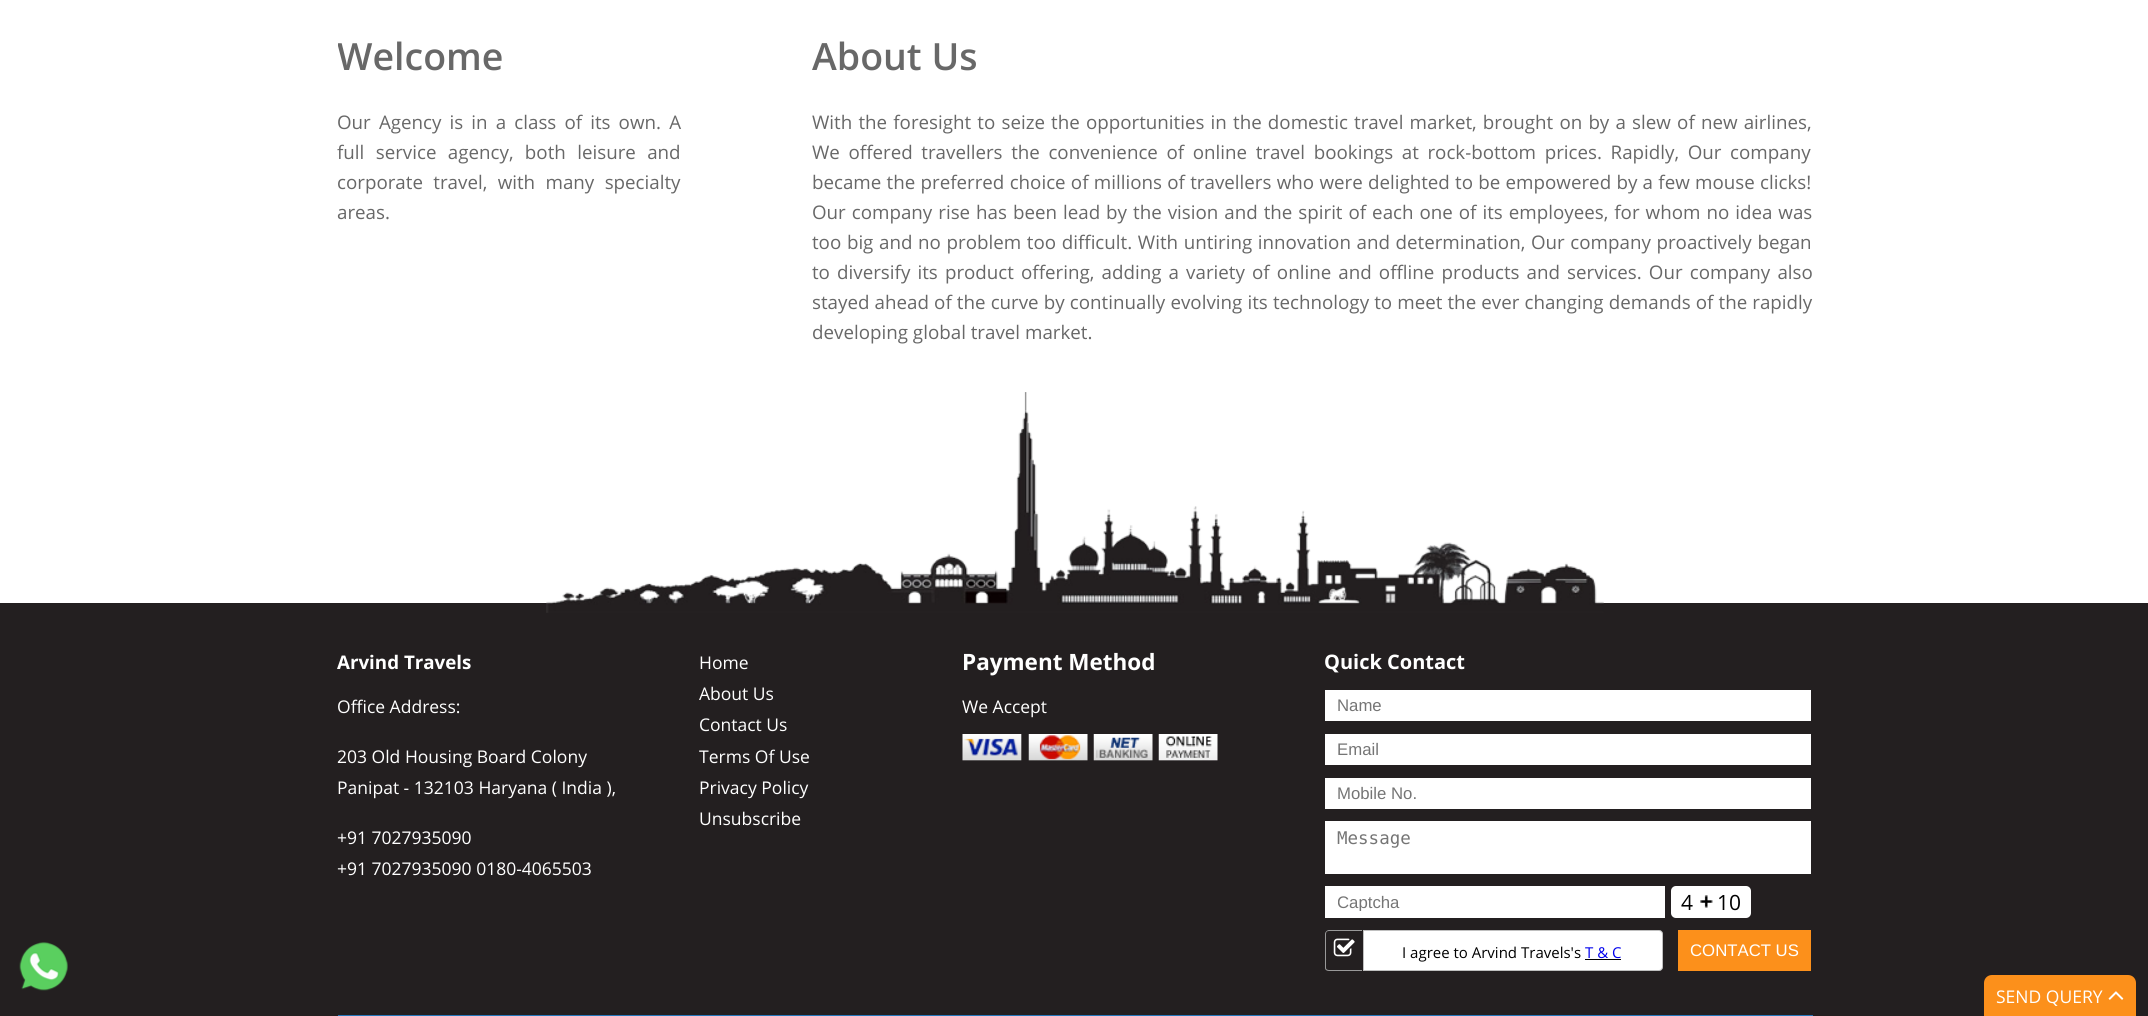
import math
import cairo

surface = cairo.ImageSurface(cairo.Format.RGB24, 2148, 1016)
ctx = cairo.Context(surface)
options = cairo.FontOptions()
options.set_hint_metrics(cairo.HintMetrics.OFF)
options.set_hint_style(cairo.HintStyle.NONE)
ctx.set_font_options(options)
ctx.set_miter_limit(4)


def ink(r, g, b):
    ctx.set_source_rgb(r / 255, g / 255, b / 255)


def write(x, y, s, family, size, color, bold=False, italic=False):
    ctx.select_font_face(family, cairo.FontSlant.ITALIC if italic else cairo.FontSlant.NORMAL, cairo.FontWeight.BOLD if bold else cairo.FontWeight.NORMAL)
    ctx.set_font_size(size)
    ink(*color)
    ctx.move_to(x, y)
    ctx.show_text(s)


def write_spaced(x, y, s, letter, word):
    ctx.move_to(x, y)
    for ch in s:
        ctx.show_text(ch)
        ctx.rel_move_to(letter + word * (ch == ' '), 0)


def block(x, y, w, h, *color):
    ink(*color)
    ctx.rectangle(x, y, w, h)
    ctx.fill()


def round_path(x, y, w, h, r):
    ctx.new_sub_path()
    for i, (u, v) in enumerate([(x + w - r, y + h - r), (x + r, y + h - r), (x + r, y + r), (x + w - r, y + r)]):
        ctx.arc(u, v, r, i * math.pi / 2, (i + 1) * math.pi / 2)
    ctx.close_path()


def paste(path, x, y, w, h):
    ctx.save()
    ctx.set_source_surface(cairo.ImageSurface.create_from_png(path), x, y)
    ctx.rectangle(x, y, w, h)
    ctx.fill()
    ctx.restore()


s1 = dict(family="Open Sans SemiBold", size=37.5, color=(104, 104, 104))
s2 = dict(family="Open Sans", size=18.75, color=(104, 104, 104))
s3 = dict(family="Open Sans", size=18.75, color=(255, 255, 255), bold=True)
s4 = dict(family="Open Sans", size=17.5, color=(255, 255, 255))
s5 = dict(family="Open Sans", size=22.5, color=(255, 255, 255), bold=True)
s6 = dict(family="Open Sans", size=20, color=(255, 255, 255), bold=True)
s7 = dict(family="Liberation Sans", size=16.75, color=(117, 117, 117))
s8 = dict(family="DejaVu Sans Mono", size=17.5, color=(117, 117, 117))
s9 = dict(family="Open Sans", size=21, color=(0, 0, 0))
s10 = dict(family="Open Sans", size=15, color=(0, 0, 0))
s11 = dict(family="Open Sans", size=15, color=(0, 0, 238))
s12 = dict(family="Liberation Sans", size=16.75, color=(255, 255, 255))

ink(255, 255, 255)
ctx.paint()
ctx.save()
ctx.rectangle(338, 30, 1475, 316)
ctx.clip()
write(337, 70, "Welcome", **s1)
ctx.restore()
ctx.select_font_face("Open Sans")
ctx.set_font_size(18.75)
ink(104, 104, 104)
write_spaced(337, 129, "Our Agency is in a class of its own. A", 0, 3.25)
write_spaced(337, 159, "full service agency, both leisure and", 0, 6.5)
write_spaced(337, 189, "corporate travel, with many specialty", 0, 5.5)
write(337, 219, "areas.", **s2)
write(812, 70, "About Us", **s1)
ctx.select_font_face("Open Sans")
ctx.set_font_size(18.75)
write_spaced(812, 129, "With the foresight to seize the opportunities in the domestic travel market, brought on by a slew of new airlines,", 0, 1.3)
write_spaced(812, 159, "We offered travellers the convenience of online travel bookings at rock-bottom prices. Rapidly, Our company", 0, 3.75)
write_spaced(812, 189, "became the preferred choice of millions of travellers who were delighted to be empowered by a few mouse clicks!", 0, 0.4)
write_spaced(812, 219, "Our company rise has been lead by the vision and the spirit of each one of its employees, for whom no idea was", 0, 1.1)
write_spaced(812, 249, "too big and no problem too difficult. With untiring innovation and determination, Our company proactively began", 0, 0.75)
write_spaced(812, 279, "to diversify its product offering, adding a variety of online and offline products and services. Our company also", 0, 2.25)
write_spaced(812, 309, "stayed ahead of the curve by continually evolving its technology to meet the ever changing demands of the rapidly", 0, 0.25)
write(812, 339, "developing global travel market.", **s2)
block(0, 603, 2148, 413, 35, 31, 32)
paste("pic1.png", 19, 942, 49, 49)
paste("pic2.png", 546, 392, 1058, 221)
write(337, 669, "Arvind Travels", **s3)
write(337, 713, "Office Address:", **s4)
write(337, 763, "203 Old Housing Board Colony", **s4)
write(337, 794, "Panipat - 132103 Haryana ( India ),", **s4)
write(337, 844, "+91 7027935090", **s4)
write(337, 875, "+91 7027935090 0180-4065503", **s4)
write(699, 669, "Home", **s4)
write(699, 700, "About Us", **s4)
write(699, 731, "Contact Us", **s4)
write(699, 763, "Terms Of Use", **s4)
write(699, 794, "Privacy Policy", **s4)
write(699, 825, "Unsubscribe", **s4)
write(962, 670, "Payment Method", **s5)
write(962, 713, "We Accept", **s4)
paste("pic3.png", 962, 734, 256, 27)
write(1324, 669, "Quick Contact", **s6)
block(1325, 690, 486, 31, 255, 255, 255)
write(1337, 711, "Name", **s7)
block(1325, 734, 486, 31, 255, 255, 255)
write(1337, 755, "Email", **s7)
block(1325, 778, 486, 31, 255, 255, 255)
write(1337, 799, "Mobile No.", **s7)
block(1325, 821, 486, 53, 255, 255, 255)
write(1337, 844, "Message", **s8)
block(1325, 886, 340, 32, 255, 255, 255)
ctx.save()
ctx.rectangle(1338, 893, 315, 18)
ctx.clip()
write(1337, 908, "Captcha", **s7)
ctx.restore()
round_path(1671, 886, 80, 32, 5)
ctx.fill()
write(1681, 910, "4", **s9)
paste("pic4.png", 1700, 895, 13, 13)
write(1717, 910, "10", **s9)
ink(153, 153, 153)
ctx.set_fill_rule(cairo.FillRule.EVEN_ODD)
ctx.new_path()
ctx.move_to(1329, 930)
ctx.line_to(1362, 930)
ctx.line_to(1362, 971)
ctx.line_to(1329, 971)
ctx.curve_to(1327, 971, 1325, 970, 1325, 968)
ctx.line_to(1325, 934)
ctx.curve_to(1325, 932, 1327, 930, 1329, 930)
ctx.close_path()
ctx.move_to(1329, 931)
ctx.line_to(1362, 931)
ctx.line_to(1362, 970)
ctx.line_to(1329, 970)
ctx.curve_to(1327, 970, 1326, 969, 1326, 968)
ctx.line_to(1326, 934)
ctx.curve_to(1326, 932, 1327, 931, 1329, 931)
ctx.close_path()
ctx.fill()
paste("pic5.png", 1333, 938, 22, 19)
ink(255, 255, 255)
ctx.new_path()
ctx.move_to(1363.5, 930.5)
ctx.line_to(1659, 930.5)
ctx.curve_to(1661, 930.5, 1662.5, 932, 1662.5, 934)
ctx.line_to(1662.5, 967)
ctx.curve_to(1662.5, 969, 1661, 970.5, 1659, 970.5)
ctx.line_to(1363.5, 970.5)
ctx.close_path()
ctx.fill_preserve()
ink(191, 191, 191)
ctx.set_line_width(1)
ctx.stroke()
write(1402, 958, "I agree to Arvind Travels's", **s10)
write(1585, 958, "T & C", **s11)
block(1585, 959, 36, 1, 0, 0, 0)
block(1678, 930, 133, 41, 252, 144, 27)
write(1690, 956, "CONTACT US", **s12)
block(338, 1015, 1475, 1, 36, 118, 187)
ink(252, 144, 27)
ctx.new_path()
ctx.move_to(1992, 975)
ctx.line_to(2128, 975)
ctx.curve_to(2132.5, 975, 2136, 978.5, 2136, 983)
ctx.line_to(2136, 1016)
ctx.line_to(1984, 1016)
ctx.line_to(1984, 983)
ctx.curve_to(1984, 978.5, 1987.5, 975, 1992, 975)
ctx.close_path()
ctx.fill()
write(1996, 1003, "SEND QUERY", **s4)
paste("pic6.png", 2108, 991, 16, 9)
surface.write_to_png("screenshot.png")
